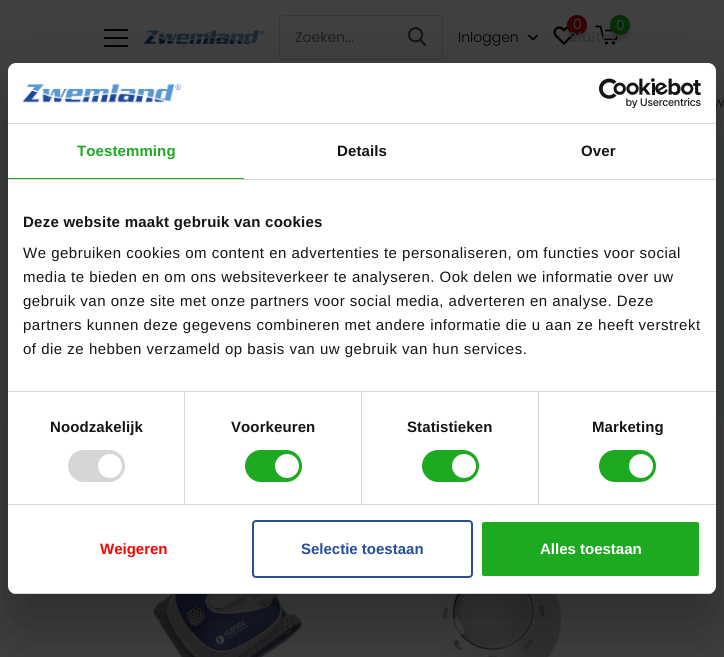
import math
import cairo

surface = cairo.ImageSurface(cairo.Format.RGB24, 724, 657)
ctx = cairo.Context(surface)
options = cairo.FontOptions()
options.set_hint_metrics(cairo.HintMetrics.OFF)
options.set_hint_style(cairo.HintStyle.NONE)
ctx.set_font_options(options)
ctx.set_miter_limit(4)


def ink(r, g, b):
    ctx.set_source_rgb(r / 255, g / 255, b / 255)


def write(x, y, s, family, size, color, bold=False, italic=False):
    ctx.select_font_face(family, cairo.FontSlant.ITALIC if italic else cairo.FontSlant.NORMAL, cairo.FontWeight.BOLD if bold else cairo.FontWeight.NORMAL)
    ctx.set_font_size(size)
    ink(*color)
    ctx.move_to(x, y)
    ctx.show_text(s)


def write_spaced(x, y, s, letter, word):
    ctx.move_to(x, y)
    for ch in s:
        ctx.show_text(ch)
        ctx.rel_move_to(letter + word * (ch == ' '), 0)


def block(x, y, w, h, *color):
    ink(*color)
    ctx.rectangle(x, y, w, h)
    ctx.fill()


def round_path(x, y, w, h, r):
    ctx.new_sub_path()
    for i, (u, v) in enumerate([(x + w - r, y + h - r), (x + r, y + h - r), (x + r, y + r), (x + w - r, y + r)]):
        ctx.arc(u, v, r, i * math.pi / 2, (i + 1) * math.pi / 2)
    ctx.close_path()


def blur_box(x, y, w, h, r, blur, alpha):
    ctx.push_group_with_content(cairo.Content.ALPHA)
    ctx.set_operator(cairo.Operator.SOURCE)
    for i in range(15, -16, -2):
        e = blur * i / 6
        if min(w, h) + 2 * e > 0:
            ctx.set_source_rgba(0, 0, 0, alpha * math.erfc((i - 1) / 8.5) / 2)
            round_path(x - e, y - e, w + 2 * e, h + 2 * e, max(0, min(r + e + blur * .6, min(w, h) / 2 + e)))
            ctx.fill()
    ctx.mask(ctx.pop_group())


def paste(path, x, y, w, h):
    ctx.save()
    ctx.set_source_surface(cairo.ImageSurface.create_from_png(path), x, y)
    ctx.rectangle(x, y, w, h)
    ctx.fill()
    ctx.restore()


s1 = dict(family="Poppins Light", size=14, color=(64, 64, 64))
s2 = dict(family="Poppins", size=14, color=(29, 29, 29))
s3 = dict(family="Poppins Light", size=14, color=(0, 0, 0))
s4 = dict(family="Poppins", size=14, color=(37, 45, 54))
s5 = dict(family="Poppins Light", size=14, color=(10, 10, 12))
s6 = dict(family="Liberation Sans", size=15, color=(255, 0, 0), bold=True)
s7 = dict(family="Liberation Sans", size=15, color=(38, 78, 154), bold=True)
s8 = dict(family="Liberation Sans", size=15, color=(255, 255, 255), bold=True)

ink(64, 64, 64)
ctx.paint()
ink(0, 0, 0)
round_path(104, 29, 24, 2, 1)
ctx.fill()
round_path(104, 37, 24, 2, 1)
ctx.fill()
round_path(104, 45, 24, 2, 1)
ctx.fill()
paste("pic1.png", 143, 30, 121, 14)
paste("pic2.png", 553, 26, 21, 19)
ink(10, 10, 12)
blur_box(567, 19, 20, 20, 10, 2, 0.25)
ink(50, 3, 3)
ctx.arc(577, 25, 10, 0, 2 * math.pi)
ctx.fill()
write(573, 29, "0", **s1)
paste("pic3.png", 595, 25, 24, 20)
ink(10, 10, 12)
blur_box(610, 19, 20, 20, 10, 2, 0.25)
ink(5, 46, 7)
ctx.arc(620, 25, 10, 0, 2 * math.pi)
ctx.fill()
write(616, 30, "0", **s1)
ink(55, 55, 55)
ctx.set_fill_rule(cairo.FillRule.EVEN_ODD)
ctx.new_path()
ctx.move_to(283, 15)
ctx.line_to(393, 15)
ctx.line_to(393, 60)
ctx.line_to(283, 60)
ctx.curve_to(281, 60, 279, 58, 279, 56)
ctx.line_to(279, 19)
ctx.curve_to(279, 17, 281, 15, 283, 15)
ctx.close_path()
ctx.move_to(283, 16)
ctx.line_to(393, 16)
ctx.line_to(393, 59)
ctx.line_to(283, 59)
ctx.curve_to(281, 59, 280, 58, 280, 56)
ctx.line_to(280, 19)
ctx.curve_to(280, 17, 281, 16, 283, 16)
ctx.close_path()
ctx.fill()
write(295, 42, "Zoeken...", **s2)
ink(55, 55, 55)
ctx.new_path()
ctx.move_to(393, 15)
ctx.line_to(439, 15)
ctx.curve_to(441, 15, 443, 17, 443, 19)
ctx.line_to(443, 56)
ctx.curve_to(443, 58, 441, 60, 439, 60)
ctx.line_to(393, 60)
ctx.close_path()
ctx.move_to(393, 16)
ctx.line_to(439, 16)
ctx.curve_to(441, 16, 442, 17, 442, 19)
ctx.line_to(442, 56)
ctx.curve_to(442, 58, 441, 59, 439, 59)
ctx.line_to(393, 59)
ctx.close_path()
ctx.fill()
paste("pic4.png", 408, 27, 19, 19)
write(458, 42, "Inloggen", **s3)
paste("pic5.png", 528, 34, 10, 7)
write(206, 42, "Zoeken", **s4)
ctx.select_font_face("Poppins Medium")
ink(53, 49, 49)
write_spaced(569, 42, "Sluiten", 0.5, 0)
write(713, 107, "w", **s5)
block(0, 130, 724, 291, 60, 63, 64)
paste("pic8.png", 153, 594, 150, 63)
paste("pic9.png", 435, 594, 127, 63)
ink(0, 0, 0)
blur_box(8, 95, 708, 531, 8, 34, 0.3)
ink(255, 255, 255)
round_path(8, 63, 708, 531, 8)
ctx.fill()
block(8, 123, 708, 1, 214, 214, 214)
paste("pic6.png", 23, 84, 158, 19)
paste("pic7.png", 599, 78, 102, 30)
block(8, 179, 708, 1, 214, 214, 214)
block(8, 178, 236, 1, 29, 169, 32)
ctx.select_font_face("Liberation Sans", cairo.FontSlant.NORMAL, cairo.FontWeight.BOLD)
ctx.set_font_size(15)
write_spaced(77, 156, "Toestemming", 0.1, 0)
ink(20, 20, 20)
write_spaced(337, 156, "Details", 0.1, 0)
write_spaced(581, 156, "Over", 0.1, 0)
block(8, 391, 708, 1, 214, 214, 214)
ink(20, 20, 20)
write_spaced(23, 227, "Deze website maakt gebruik van cookies", 0.25, 0)
ctx.select_font_face("Liberation Sans")
write_spaced(23, 258, "We gebruiken cookies om content en advertenties te personaliseren, om functies voor social", 0.5, 0)
write_spaced(23, 282, "media te bieden en om ons websiteverkeer te analyseren. Ook delen we informatie over uw", 0.5, 0)
write_spaced(23, 306, "gebruik van onze site met onze partners voor social media, adverteren en analyse. Deze", 0.5, 0)
write_spaced(23, 330, "partners kunnen deze gegevens combineren met andere informatie die u aan ze heeft verstrekt", 0.5, 0)
write_spaced(23, 354, "of die ze hebben verzameld op basis van uw gebruik van hun services.", 0.5, 0)
block(8, 504, 708, 1, 214, 214, 214)
block(184, 392, 1, 112, 214, 214, 214)
ctx.select_font_face("Liberation Sans", cairo.FontSlant.NORMAL, cairo.FontWeight.BOLD)
ink(20, 20, 20)
write_spaced(50, 432, "Noodzakelijk", 0.1, 0)
ink(214, 214, 214)
round_path(68, 450, 57, 32, 16)
ctx.fill()
ink(255, 255, 255)
ctx.arc(110, 466, 12, 0, 2 * math.pi)
ctx.fill()
block(361, 392, 1, 112, 214, 214, 214)
ink(20, 20, 20)
write_spaced(231, 432, "Voorkeuren", 0.1, 0)
ink(29, 169, 32)
round_path(245, 450, 57, 32, 16)
ctx.fill()
ink(255, 255, 255)
ctx.arc(287, 466, 12, 0, 2 * math.pi)
ctx.fill()
block(538, 392, 1, 112, 214, 214, 214)
ink(20, 20, 20)
write_spaced(407, 432, "Statistieken", 0.1, 0)
ink(29, 169, 32)
round_path(422, 450, 57, 32, 16)
ctx.fill()
ink(255, 255, 255)
ctx.arc(464, 466, 12, 0, 2 * math.pi)
ctx.fill()
ink(20, 20, 20)
write_spaced(592, 432, "Marketing", 0.1, 0)
ink(29, 169, 32)
round_path(599, 450, 57, 32, 16)
ctx.fill()
ink(255, 255, 255)
ctx.arc(641, 466, 12, 0, 2 * math.pi)
ctx.fill()
ctx.save()
ctx.set_fill_rule(cairo.FillRule.WINDING)
round_path(8, 63, 708, 531, 8)
ctx.clip()
block(8, 593, 708, 1, 214, 214, 214)
ctx.restore()
write(100, 554, "Weigeren", **s6)
round_path(253, 521, 219, 56, 3)
ink(38, 78, 154)
ctx.stroke()
write(301, 554, "Selectie toestaan", **s7)
ink(29, 169, 32)
round_path(481, 521, 219, 56, 3)
ctx.fill_preserve()
ink(255, 255, 255)
ctx.stroke()
write(540, 554, "Alles toestaan", **s8)
surface.write_to_png("screenshot.png")
